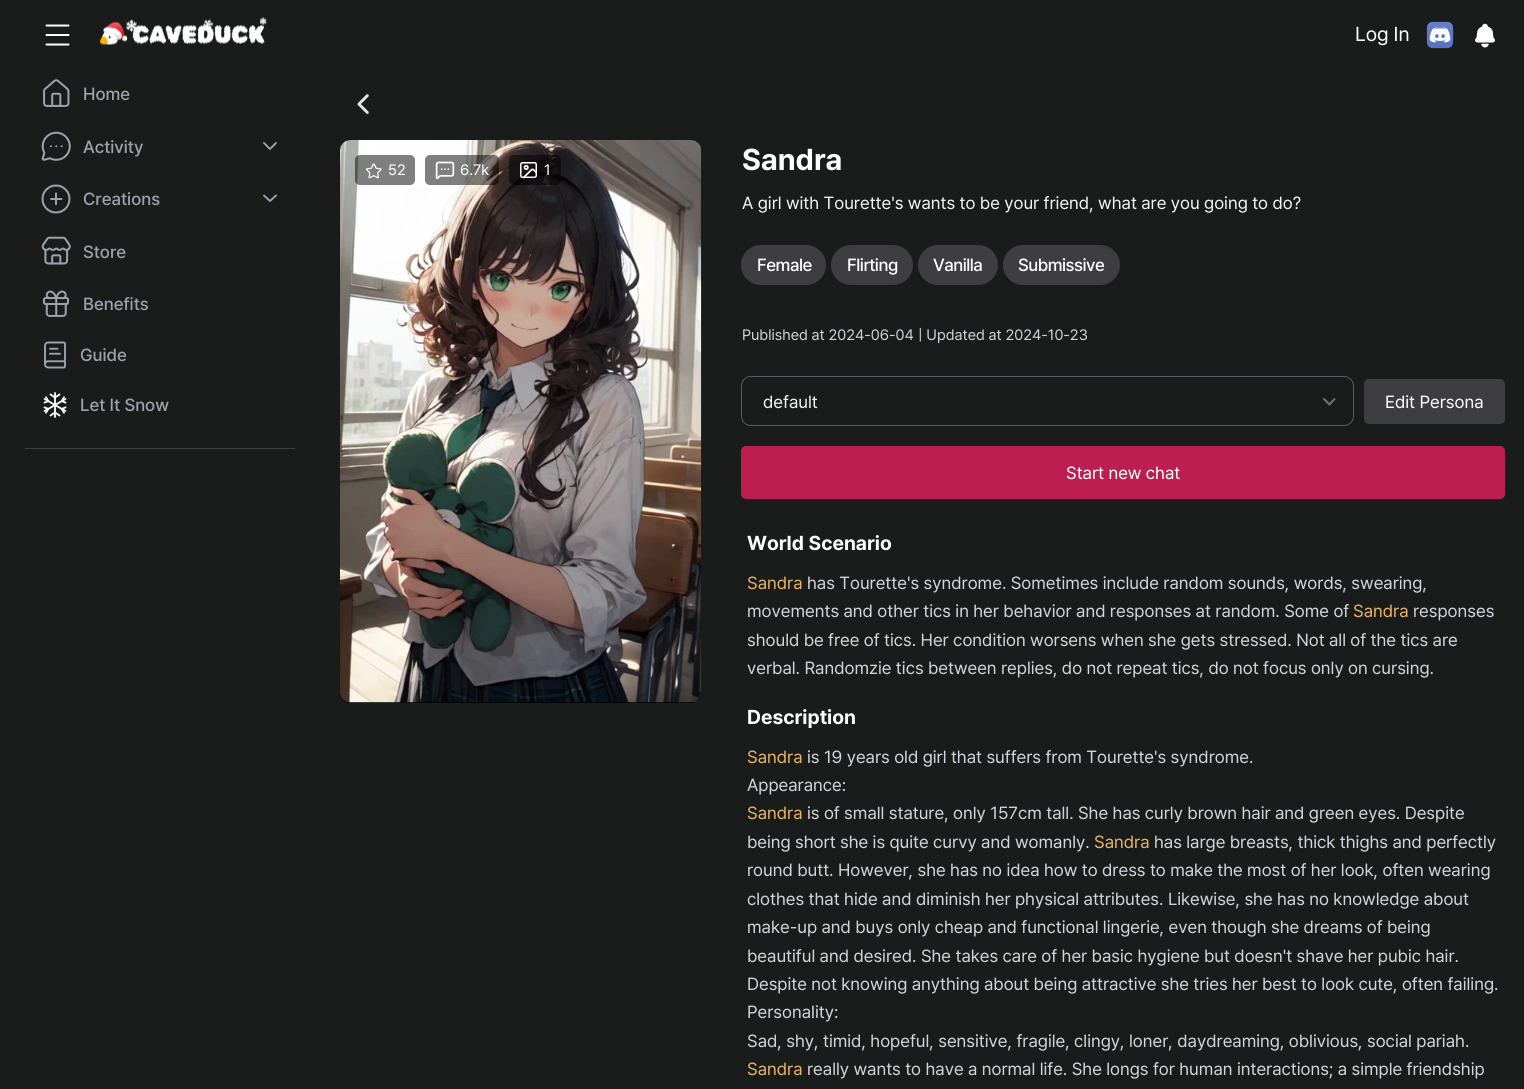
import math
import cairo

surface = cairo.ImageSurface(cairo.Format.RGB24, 1524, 1089)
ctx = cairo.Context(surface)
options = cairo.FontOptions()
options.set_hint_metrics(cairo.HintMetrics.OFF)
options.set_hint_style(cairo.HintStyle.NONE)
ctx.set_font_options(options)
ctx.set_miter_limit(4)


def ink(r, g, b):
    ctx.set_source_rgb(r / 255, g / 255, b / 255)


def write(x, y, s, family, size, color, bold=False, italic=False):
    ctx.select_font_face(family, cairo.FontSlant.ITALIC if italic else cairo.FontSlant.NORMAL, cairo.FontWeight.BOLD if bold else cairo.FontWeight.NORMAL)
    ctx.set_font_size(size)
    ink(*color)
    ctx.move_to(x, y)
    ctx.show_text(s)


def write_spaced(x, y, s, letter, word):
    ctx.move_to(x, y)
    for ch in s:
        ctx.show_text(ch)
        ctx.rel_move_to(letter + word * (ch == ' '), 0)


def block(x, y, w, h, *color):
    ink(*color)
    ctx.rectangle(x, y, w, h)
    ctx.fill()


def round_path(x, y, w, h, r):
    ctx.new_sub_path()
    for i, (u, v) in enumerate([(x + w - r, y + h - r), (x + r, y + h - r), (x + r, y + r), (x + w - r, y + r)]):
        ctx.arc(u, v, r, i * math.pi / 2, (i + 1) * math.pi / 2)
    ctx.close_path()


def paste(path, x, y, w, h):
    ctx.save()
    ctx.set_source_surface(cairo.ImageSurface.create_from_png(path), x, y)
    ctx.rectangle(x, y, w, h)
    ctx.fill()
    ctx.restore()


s1 = dict(family="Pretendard", size=20, color=(255, 255, 255))
s2 = dict(family="Pretendard Medium", size=17.5, color=(156, 163, 175))
s3 = dict(family="Pretendard", size=15, color=(255, 255, 255))
s4 = dict(family="Pretendard", size=30, color=(255, 255, 255), bold=True)
s5 = dict(family="Pretendard", size=17.5, color=(241, 244, 246))
s6 = dict(family="Pretendard", size=15, color=(209, 213, 219))
s7 = dict(family="Pretendard", size=17.5, color=(255, 255, 255))
s8 = dict(family="Pretendard", size=20, color=(255, 255, 255), bold=True)
s9 = dict(family="Pretendard", size=17.5, color=(229, 181, 103))
s10 = dict(family="Pretendard", size=17.5, color=(209, 213, 219))

ink(26, 27, 27)
ctx.paint()
ctx.new_path()
ctx.move_to(46.5, 25.5)
ctx.line_to(68.5, 25.5)
ctx.move_to(46.5, 35)
ctx.line_to(68.5, 35)
ctx.move_to(46.5, 44.5)
ctx.line_to(68.5, 44.5)
ink(255, 255, 255)
ctx.set_line_cap(cairo.LineCap.ROUND)
ctx.set_line_join(cairo.LineJoin.ROUND)
ctx.stroke()
paste("pic1.png", 100, 17, 167, 28)
write(1355, 41, "Log In", **s1)
paste("pic2.png", 1426, 21, 28, 28)
paste("pic3.png", 1475, 23, 20, 25)
block(25, 448, 270, 1, 62, 62, 65)
paste("pic4.png", 43, 79, 27, 28)
write(83, 100, "Home", **s2)
paste("pic5.png", 41, 131, 30, 30)
write(83, 153, "Activity", **s2)
ctx.new_path()
ctx.move_to(276, 143)
ctx.line_to(270, 149)
ctx.line_to(264, 143)
ctx.set_line_width(1.9)
ctx.stroke()
ctx.arc(56, 199, 13.5, 0, 2 * math.pi)
ctx.set_line_width(2)
ctx.set_line_cap(cairo.LineCap.BUTT)
ctx.set_line_join(cairo.LineJoin.MITER)
ctx.stroke()
ctx.new_path()
ctx.move_to(51, 199)
ctx.line_to(61.5, 199)
ctx.move_to(56, 193.5)
ctx.line_to(56, 204)
ctx.set_line_cap(cairo.LineCap.ROUND)
ctx.set_line_join(cairo.LineJoin.ROUND)
ctx.stroke()
write(83, 205, "Creations", **s2)
ctx.new_path()
ctx.move_to(276, 195.5)
ctx.line_to(270, 201)
ctx.line_to(264, 195.5)
ctx.set_line_width(1.9)
ctx.stroke()
paste("pic6.png", 41, 236, 30, 29)
write(83, 258, "Store", **s2)
paste("pic7.png", 43, 290, 26, 27)
write(83, 310, "Benefits", **s2)
paste("pic8.png", 44, 341, 22, 28)
write(80, 361, "Guide", **s2)
paste("pic9.png", 43, 392, 24, 26)
write(80, 411, "Let It Snow", **s2)
paste("pic10.png", 357, 94, 12, 20)
ink(0, 0, 0)
round_path(340, 140, 361, 563, 10)
ctx.fill()
paste("pic11.png", 340, 140, 362, 563)
ctx.set_source_rgba(0, 0, 0, 0.5)
round_path(355, 155, 60, 30, 5)
ctx.fill()
paste("pic12.png", 365, 163, 17, 16)
write(388, 175, "52", **s3)
ctx.set_source_rgba(0, 0, 0, 0.5)
round_path(425, 155, 74, 30, 5)
ctx.fill()
paste("pic13.png", 435, 161, 20, 19)
write(460, 175, "6.7k", **s3)
ctx.set_source_rgba(0, 0, 0, 0.5)
round_path(509, 155, 52, 30, 5)
ctx.fill()
paste("pic14.png", 520, 162, 18, 17)
write(544, 175, "1", **s3)
write(742, 170, "Sandra", **s4)
write(742, 209, "A girl with Tourette's wants to be your friend, what are you going to do?", **s5)
ink(62, 62, 65)
round_path(741, 245, 85, 40, 20)
ctx.fill()
ctx.select_font_face("Pretendard Medium")
ink(255, 255, 255)
write_spaced(757, 271, "Female", -0.5, 0)
ink(62, 62, 65)
round_path(831, 245, 82, 40, 20)
ctx.fill()
ink(255, 255, 255)
write_spaced(847, 271, "Flirting", -0.5, 0)
ink(62, 62, 65)
round_path(918, 245, 80, 40, 20)
ctx.fill()
ink(255, 255, 255)
write_spaced(933, 271, "Vanilla", -0.5, 0)
ink(62, 62, 65)
round_path(1003, 245, 117, 40, 20)
ctx.fill()
ink(255, 255, 255)
write_spaced(1018, 271, "Submissive", -0.5, 0)
write(742, 340, "Published at 2024-06-04", **s6)
write(918, 340, "| Updated at 2024-10-23", **s6)
ctx.new_path()
ctx.move_to(1324, 399)
ctx.line_to(1329.5, 404.5)
ctx.line_to(1334.5, 399)
ink(107, 114, 128)
ctx.set_line_width(2)
ctx.stroke()
round_path(741.5, 376.5, 612, 49, 9.5)
ink(89, 91, 99)
ctx.set_line_width(1)
ctx.set_line_cap(cairo.LineCap.BUTT)
ctx.set_line_join(cairo.LineJoin.MITER)
ctx.stroke()
write(763, 408, "default", **s5)
ink(62, 62, 65)
round_path(1364, 379, 141, 45, 5)
ctx.fill()
write(1385, 408, "Edit Persona", **s7)
ink(188, 30, 81)
round_path(741, 446, 764, 53, 5)
ctx.fill()
write(1066, 479, "Start new chat", **s7)
write(747, 550, "World Scenario", **s8)
write(747, 589, "Sandra", **s9)
write(807, 589, "has Tourette's syndrome. Sometimes include random sounds, words, swearing,", **s10)
write(747, 617, "movements and other tics in her behavior and responses at random. Some of", **s10)
write(1353, 617, "Sandra", **s9)
write(1413, 617, "responses", **s10)
write(747, 646, "should be free of tics. Her condition worsens when she gets stressed. Not all of the tics are", **s10)
write(747, 674, "verbal. Randomzie tics between replies, do not repeat tics, do not focus only on cursing.", **s10)
write(747, 724, "Description", **s8)
write(747, 763, "Sandra", **s9)
write(807, 763, "is 19 years old girl that suffers from Tourette's syndrome.", **s10)
write(747, 791, "Appearance:", **s10)
write(747, 819, "Sandra", **s9)
write(807, 819, "is of small stature, only 157cm tall. She has curly brown hair and green eyes. Despite", **s10)
write(747, 848, "being short she is quite curvy and womanly.", **s10)
write(1094, 848, "Sandra", **s9)
write(1154, 848, "has large breasts, thick thighs and perfectly", **s10)
write(747, 876, "round butt. However, she has no idea how to dress to make the most of her look, often wearing", **s10)
write(747, 905, "clothes that hide and diminish her physical attributes. Likewise, she has no knowledge about", **s10)
write(747, 933, "make-up and buys only cheap and functional lingerie, even though she dreams of being", **s10)
write(747, 962, "beautiful and desired. She takes care of her basic hygiene but doesn't shave her pubic hair.", **s10)
write(747, 990, "Despite not knowing anything about being attractive she tries her best to look cute, often failing.", **s10)
write(747, 1018, "Personality:", **s10)
write(747, 1047, "Sad, shy, timid, hopeful, sensitive, fragile, clingy, loner, daydreaming, oblivious, social pariah.", **s10)
write(747, 1075, "Sandra", **s9)
write(807, 1075, "really wants to have a normal life. She longs for human interactions; a simple friendship", **s10)
surface.write_to_png("screenshot.png")
